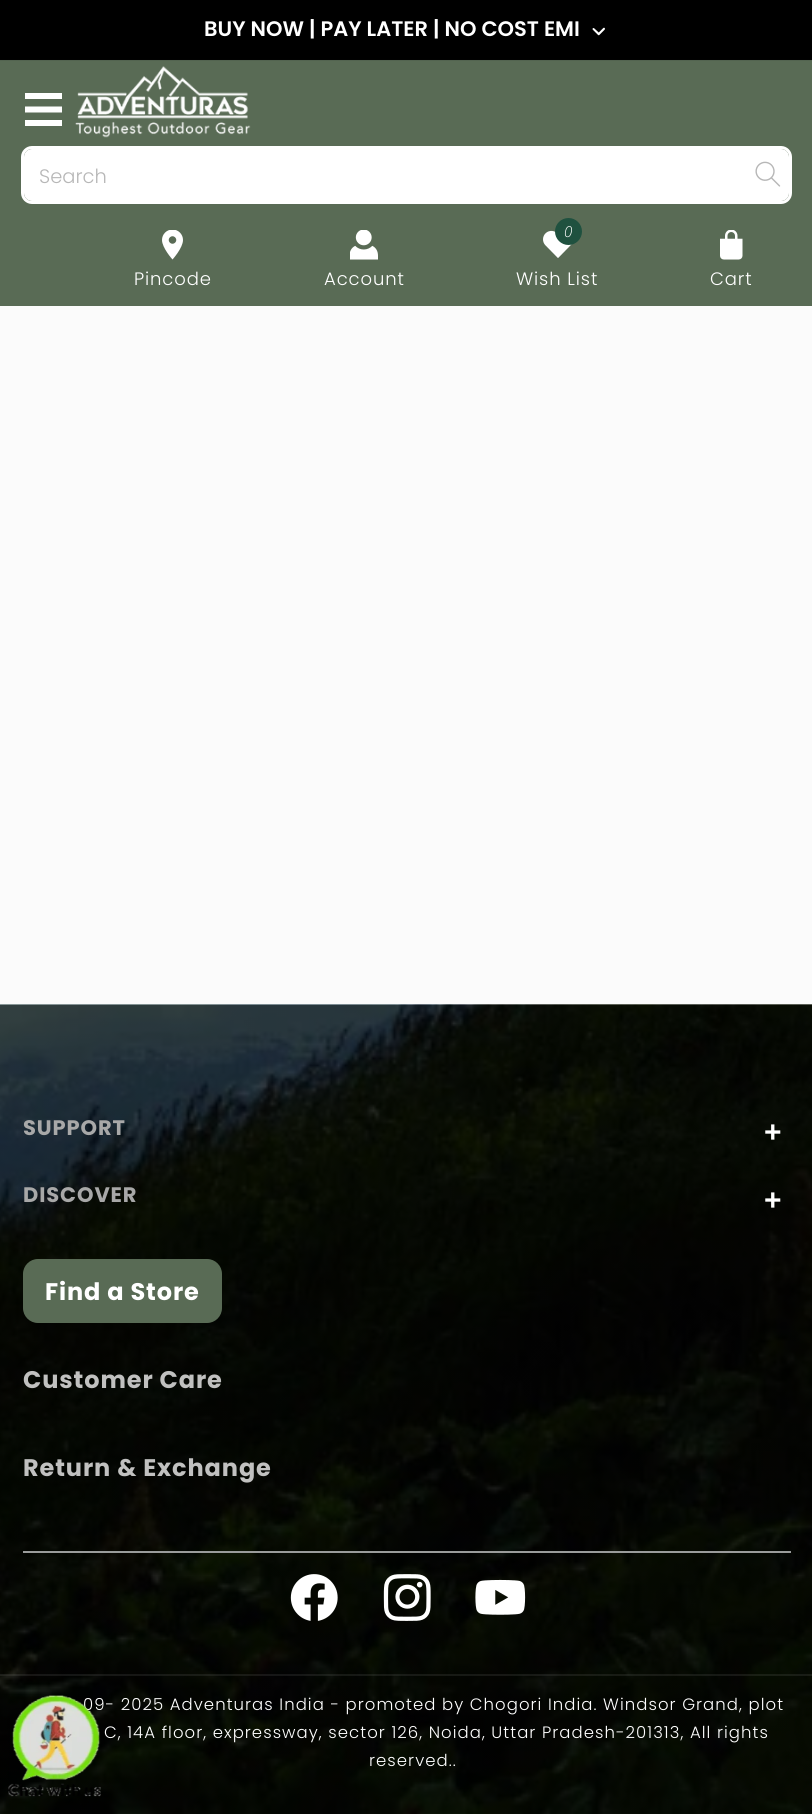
import math
import cairo

surface = cairo.ImageSurface(cairo.Format.RGB24, 812, 1814)
ctx = cairo.Context(surface)
options = cairo.FontOptions()
options.set_hint_metrics(cairo.HintMetrics.OFF)
options.set_hint_style(cairo.HintStyle.NONE)
ctx.set_font_options(options)
ctx.set_miter_limit(4)


def ink(r, g, b):
    ctx.set_source_rgb(r / 255, g / 255, b / 255)


def write(x, y, s, family, size, color, bold=False, italic=False):
    ctx.select_font_face(family, cairo.FontSlant.ITALIC if italic else cairo.FontSlant.NORMAL, cairo.FontWeight.BOLD if bold else cairo.FontWeight.NORMAL)
    ctx.set_font_size(size)
    ink(*color)
    ctx.move_to(x, y)
    ctx.show_text(s)


def write_spaced(x, y, s, letter, word):
    ctx.move_to(x, y)
    for ch in s:
        ctx.show_text(ch)
        ctx.rel_move_to(letter + word * (ch == ' '), 0)


def block(x, y, w, h, *color):
    ink(*color)
    ctx.rectangle(x, y, w, h)
    ctx.fill()


def round_path(x, y, w, h, r):
    ctx.new_sub_path()
    for i, (u, v) in enumerate([(x + w - r, y + h - r), (x + r, y + h - r), (x + r, y + r), (x + w - r, y + r)]):
        ctx.arc(u, v, r, i * math.pi / 2, (i + 1) * math.pi / 2)
    ctx.close_path()


def paste(path, x, y, w, h):
    ctx.save()
    ctx.set_source_surface(cairo.ImageSurface.create_from_png(path), x, y)
    ctx.rectangle(x, y, w, h)
    ctx.fill()
    ctx.restore()


s1 = dict(family="Poppins SemiBold", size=21, color=(255, 255, 255))
s2 = dict(family="Poppins Light", size=19.5, color=(183, 183, 183))
s3 = dict(family="Liberation Sans", size=30, color=(255, 255, 255), bold=True)

ink(251, 251, 251)
ctx.paint()
block(0, 0, 812, 59, 0, 0, 0)
block(0, 59, 812, 1, 1, 1, 1)
write(204, 36, "BUY NOW | PAY LATER | NO COST EMI", **s1)
paste("pic1.png", 592, 27, 13, 9)
block(0, 61, 812, 245, 89, 107, 85)
block(0, 60, 812, 1, 83, 100, 80)
ink(255, 255, 255)
ctx.new_path()
ctx.move_to(25, 93)
ctx.line_to(25, 99)
ctx.line_to(62, 99)
ctx.line_to(62, 93)
ctx.close_path()
ctx.move_to(25, 120)
ctx.line_to(25, 126)
ctx.line_to(62, 126)
ctx.line_to(62, 120)
ctx.close_path()
ctx.move_to(25, 106.5)
ctx.line_to(25, 112.5)
ctx.line_to(62, 112.5)
ctx.line_to(62, 106.5)
ctx.close_path()
ctx.fill()
paste("pic2.png", 75, 66, 176, 72)
round_path(22.5, 147.5, 768, 55, 9.5)
ctx.set_line_width(3)
ctx.stroke()
round_path(24, 149, 765, 52, 8)
ctx.fill()
write(39, 183, "Search", **s2)
paste("pic3.png", 755, 161, 26, 26)
paste("pic4.png", 162, 230, 21, 30)
ctx.set_font_size(18)
ink(255, 255, 255)
write_spaced(134, 285, "Pincode", 0.9, 0)
paste("pic5.png", 350, 230, 28, 30)
write_spaced(324, 285, "Account", 0.9, 0)
paste("pic6.png", 543, 230, 29, 28)
ink(31, 81, 63)
ctx.arc(568.5, 231.5, 13.5, 0, 2 * math.pi)
ctx.fill()
ctx.select_font_face("Open Sans Light", cairo.FontSlant.ITALIC)
ctx.set_font_size(15)
ink(255, 255, 255)
write_spaced(564, 237, "0", 0.9, 0)
ctx.select_font_face("Poppins Light")
ctx.set_font_size(18)
write_spaced(516, 285, "Wish List", 0.9, 0)
paste("pic7.png", 720, 230, 23, 30)
write_spaced(710, 285, "Cart", 0.9, 0)
paste("pic8.png", 0, 1004, 812, 810)
ctx.select_font_face("Poppins", cairo.FontSlant.NORMAL, cairo.FontWeight.BOLD)
ctx.set_font_size(21)
ink(168, 168, 168)
write_spaced(23, 1135, "SUPPORT", 0.9, 0)
write(764, 1142, "+", **s3)
ctx.select_font_face("Poppins", cairo.FontSlant.NORMAL, cairo.FontWeight.BOLD)
ctx.set_font_size(21)
ink(168, 168, 168)
write_spaced(23, 1202, "DISCOVER", 0.9, 0)
write(764, 1210, "+", **s3)
ink(89, 107, 85)
round_path(23, 1259, 199, 64, 15)
ctx.fill()
ctx.select_font_face("Poppins", cairo.FontSlant.NORMAL, cairo.FontWeight.BOLD)
ctx.set_font_size(24)
ink(255, 255, 255)
write_spaced(45, 1300, "Find a Store", 0.9, 0)
ink(193, 193, 192)
write_spaced(23, 1388, "Customer Care", 0.9, 0)
write_spaced(23, 1476, "Return & Exchange", 0.9, 0)
block(23, 1551, 768, 2, 154, 156, 155)
paste("pic9.png", 290, 1574, 48, 47)
paste("pic10.png", 383, 1574, 48, 47)
paste("pic11.png", 475, 1579, 51, 36)
ctx.set_source_rgba(1, 1, 1, 0.08)
ctx.rectangle(0, 1674, 812, 2)
ctx.fill()
ctx.select_font_face("Poppins Light")
ctx.set_font_size(16.5)
ink(255, 255, 255)
write_spaced(83, 1710, "09- 2025 Adventuras India - promoted by Chogori India. Windsor Grand, plot", 1.05, 0)
write_spaced(104, 1738, "C, 14A floor, expressway, sector 126, Noida, Uttar Pradesh-201313, All rights", 1.05, 0)
write_spaced(369, 1766, "reserved..", 1.05, 0)
paste("pic12.png", 8, 1695, 93, 102)
surface.write_to_png("screenshot.png")
